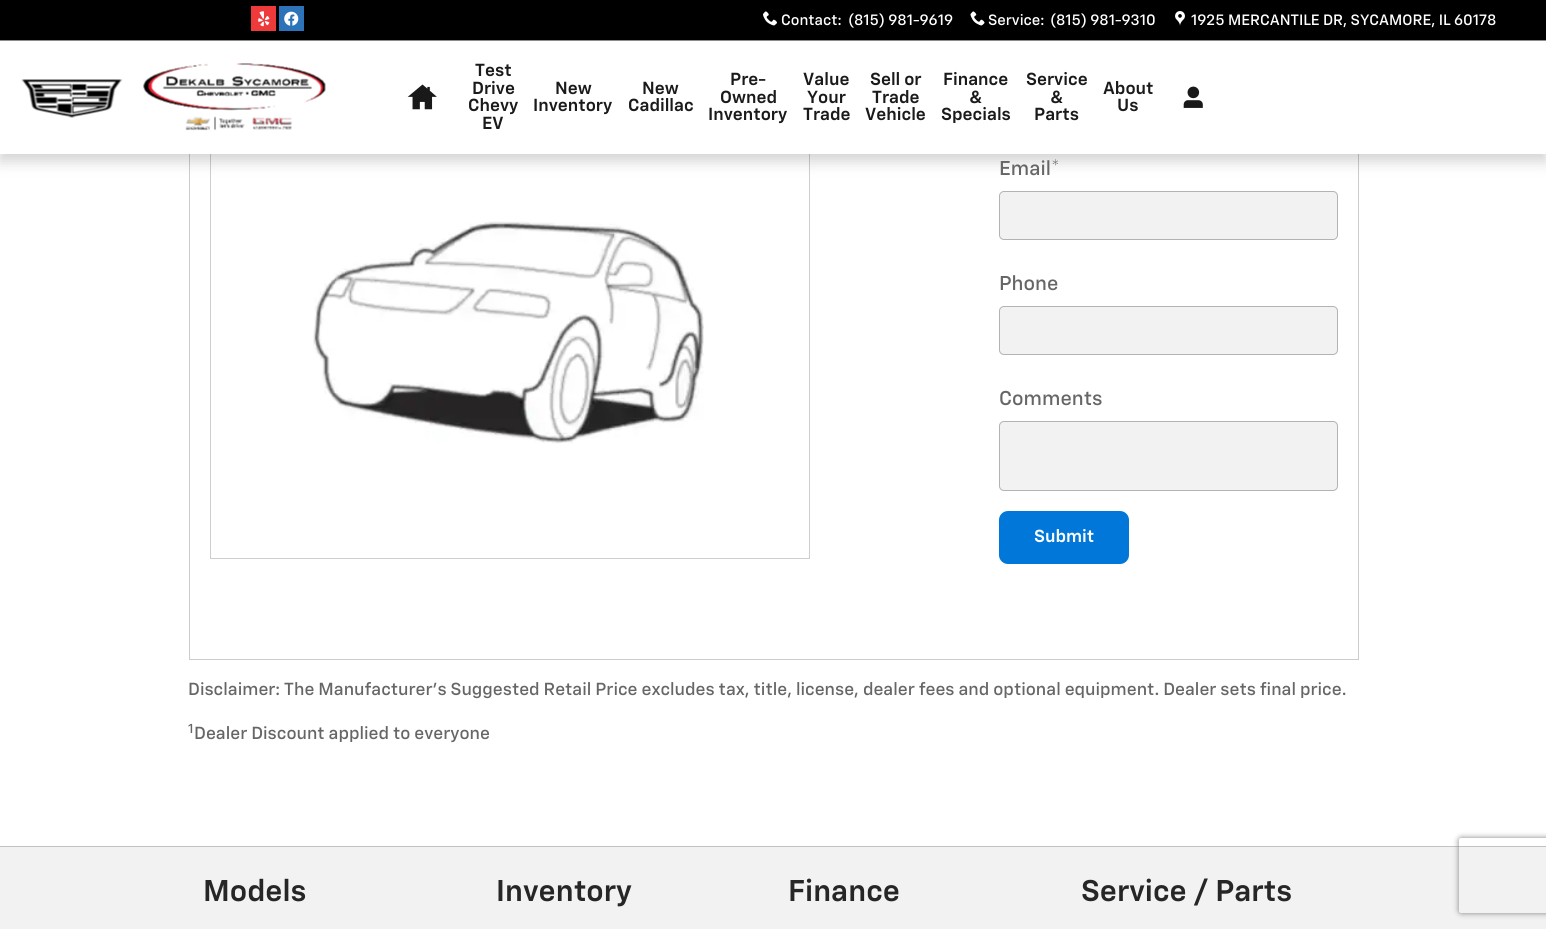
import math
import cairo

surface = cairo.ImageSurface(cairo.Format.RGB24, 1546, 929)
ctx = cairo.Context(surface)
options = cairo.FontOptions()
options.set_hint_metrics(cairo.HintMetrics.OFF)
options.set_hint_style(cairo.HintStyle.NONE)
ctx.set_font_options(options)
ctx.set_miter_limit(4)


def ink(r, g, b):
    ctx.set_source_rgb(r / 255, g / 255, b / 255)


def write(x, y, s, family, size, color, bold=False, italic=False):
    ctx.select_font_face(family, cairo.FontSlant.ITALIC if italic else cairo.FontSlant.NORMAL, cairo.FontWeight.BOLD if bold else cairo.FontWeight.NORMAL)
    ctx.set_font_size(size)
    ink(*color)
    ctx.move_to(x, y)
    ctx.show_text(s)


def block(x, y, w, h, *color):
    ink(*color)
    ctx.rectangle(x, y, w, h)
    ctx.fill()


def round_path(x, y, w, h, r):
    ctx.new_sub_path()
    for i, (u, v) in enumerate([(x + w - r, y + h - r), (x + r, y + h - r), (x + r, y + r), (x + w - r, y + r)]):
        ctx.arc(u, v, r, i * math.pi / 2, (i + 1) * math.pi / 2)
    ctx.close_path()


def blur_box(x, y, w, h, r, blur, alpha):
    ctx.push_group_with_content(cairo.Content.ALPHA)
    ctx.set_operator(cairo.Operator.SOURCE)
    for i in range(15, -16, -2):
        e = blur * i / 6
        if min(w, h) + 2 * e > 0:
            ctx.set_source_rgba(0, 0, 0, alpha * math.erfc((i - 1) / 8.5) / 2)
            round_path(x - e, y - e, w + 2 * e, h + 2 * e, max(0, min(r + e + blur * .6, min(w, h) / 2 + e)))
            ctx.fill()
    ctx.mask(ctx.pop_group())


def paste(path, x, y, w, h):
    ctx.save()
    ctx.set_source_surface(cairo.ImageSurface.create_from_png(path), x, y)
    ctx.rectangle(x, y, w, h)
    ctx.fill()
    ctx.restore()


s1 = dict(family="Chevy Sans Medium", size=15, color=(255, 255, 255))
s2 = dict(family="Chevy Sans SemiBold", size=17.5, color=(26, 26, 26))
s3 = dict(family="Chevy Sans Medium", size=20, color=(102, 102, 102))
s4 = dict(family="Chevy Sans SemiBold", size=17.5, color=(255, 255, 255))
s5 = dict(family="Chevy Sans Medium", size=17.5, color=(102, 102, 102))
s6 = dict(family="Chevy Sans Medium", size=13, color=(102, 102, 102))
s7 = dict(family="Chevy Sans SemiBold", size=30, color=(38, 38, 38))

ink(255, 255, 255)
ctx.paint()
ctx.rectangle(189.5, -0.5, 1169, 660)
ink(204, 204, 204)
ctx.set_line_width(1)
ctx.stroke()
paste("pic10.png", 313, 221, 391, 223)
ctx.rectangle(210.5, 109.5, 599, 449)
ink(206, 206, 206)
ctx.stroke()
ink(0, 0, 0)
blur_box(0, 8, 1546, 153, 0, 7.5, 0.18)
block(0, 41, 1546, 113, 255, 255, 255)
block(0, 0, 1546, 40, 0, 0, 0)
block(0, 40, 1546, 1, 140, 140, 140)
paste("pic1.png", 251, 6, 25, 25)
paste("pic2.png", 279, 6, 25, 25)
paste("pic3.png", 763, 11, 14, 15)
write(781, 25, "Contact:", **s1)
write(848, 25, "(815) 981-9619", **s1)
paste("pic4.png", 970, 11, 15, 15)
write(988, 25, "Service:", **s1)
write(1050, 25, "(815) 981-9310", **s1)
paste("pic5.png", 1175, 11, 10, 15)
write(1191, 25, "1925 MERCANTILE DR, SYCAMORE, IL 60178", **s1)
paste("pic6.png", 21, 79, 102, 39)
paste("pic7.png", 143, 63, 183, 68)
paste("pic8.png", 407, 84, 30, 26)
write(475, 76, "Test", **s2)
write(472, 94, "Drive", **s2)
write(468, 111, "Chevy", **s2)
write(482, 129, "EV", **s2)
write(555, 94, "New", **s2)
write(533, 111, "Inventory", **s2)
write(642, 94, "New", **s2)
write(628, 111, "Cadillac", **s2)
write(730, 85, "Pre-", **s2)
write(720, 103, "Owned", **s2)
write(708, 120, "Inventory", **s2)
write(803, 85, "Value", **s2)
write(807, 103, "Your", **s2)
write(803, 120, "Trade", **s2)
write(870, 85, "Sell or", **s2)
write(872, 103, "Trade", **s2)
write(865, 120, "Vehicle", **s2)
write(943, 85, "Finance", **s2)
write(969, 103, "&", **s2)
write(941, 120, "Specials", **s2)
write(1026, 85, "Service", **s2)
write(1050, 103, "&", **s2)
write(1034, 120, "Parts", **s2)
write(1103, 94, "About", **s2)
write(1117, 111, "Us", **s2)
paste("pic9.png", 1183, 86, 20, 22)
write(999, 175, "Email*", **s3)
ink(242, 242, 242)
round_path(999.5, 191.5, 338, 48, 4.5)
ctx.fill_preserve()
ink(179, 179, 179)
ctx.stroke()
write(999, 290, "Phone", **s3)
ink(242, 242, 242)
round_path(999.5, 306.5, 338, 48, 4.5)
ctx.fill_preserve()
ink(179, 179, 179)
ctx.stroke()
write(999, 405, "Comments", **s3)
ink(242, 242, 242)
round_path(999.5, 421.5, 338, 69, 4.5)
ctx.fill_preserve()
ink(179, 179, 179)
ctx.stroke()
ink(0, 119, 217)
round_path(1000.5, 512.5, 127, 50, 7.5)
ctx.fill_preserve()
ctx.set_line_width(3)
ctx.stroke()
write(1034, 542, "Submit", **s4)
write(188, 695, "Disclaimer: The Manufacturer’s Suggested Retail Price excludes tax, title, license, dealer fees and optional equipment. Dealer sets final price.", **s5)
write(188, 733, "1", **s6)
write(194, 739, "Dealer Discount applied to everyone", **s5)
block(0, 847, 1546, 82, 242, 242, 242)
block(0, 846, 1546, 1, 194, 194, 194)
write(203, 901, "Models", **s7)
write(496, 901, "Inventory", **s7)
write(788, 901, "Finance", **s7)
write(1081, 901, "Service / Parts", **s7)
ctx.save()
ctx.set_fill_rule(cairo.FillRule.EVEN_ODD)
ctx.new_path()
ctx.move_to(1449, 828)
ctx.line_to(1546, 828)
ctx.line_to(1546, 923)
ctx.line_to(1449, 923)
ctx.close_path()
ctx.move_to(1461.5, 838)
ctx.line_to(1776.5, 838)
ctx.curve_to(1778, 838, 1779, 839, 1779, 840.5)
ctx.line_to(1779, 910.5)
ctx.curve_to(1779, 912, 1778, 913, 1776.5, 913)
ctx.line_to(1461.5, 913)
ctx.curve_to(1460, 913, 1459, 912, 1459, 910.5)
ctx.line_to(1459, 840.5)
ctx.curve_to(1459, 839, 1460, 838, 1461.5, 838)
ctx.close_path()
ctx.clip()
ink(128, 128, 128)
blur_box(1459, 838, 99, 75, 2.5, 3, 1)
ctx.restore()
surface.write_to_png("screenshot.png")
